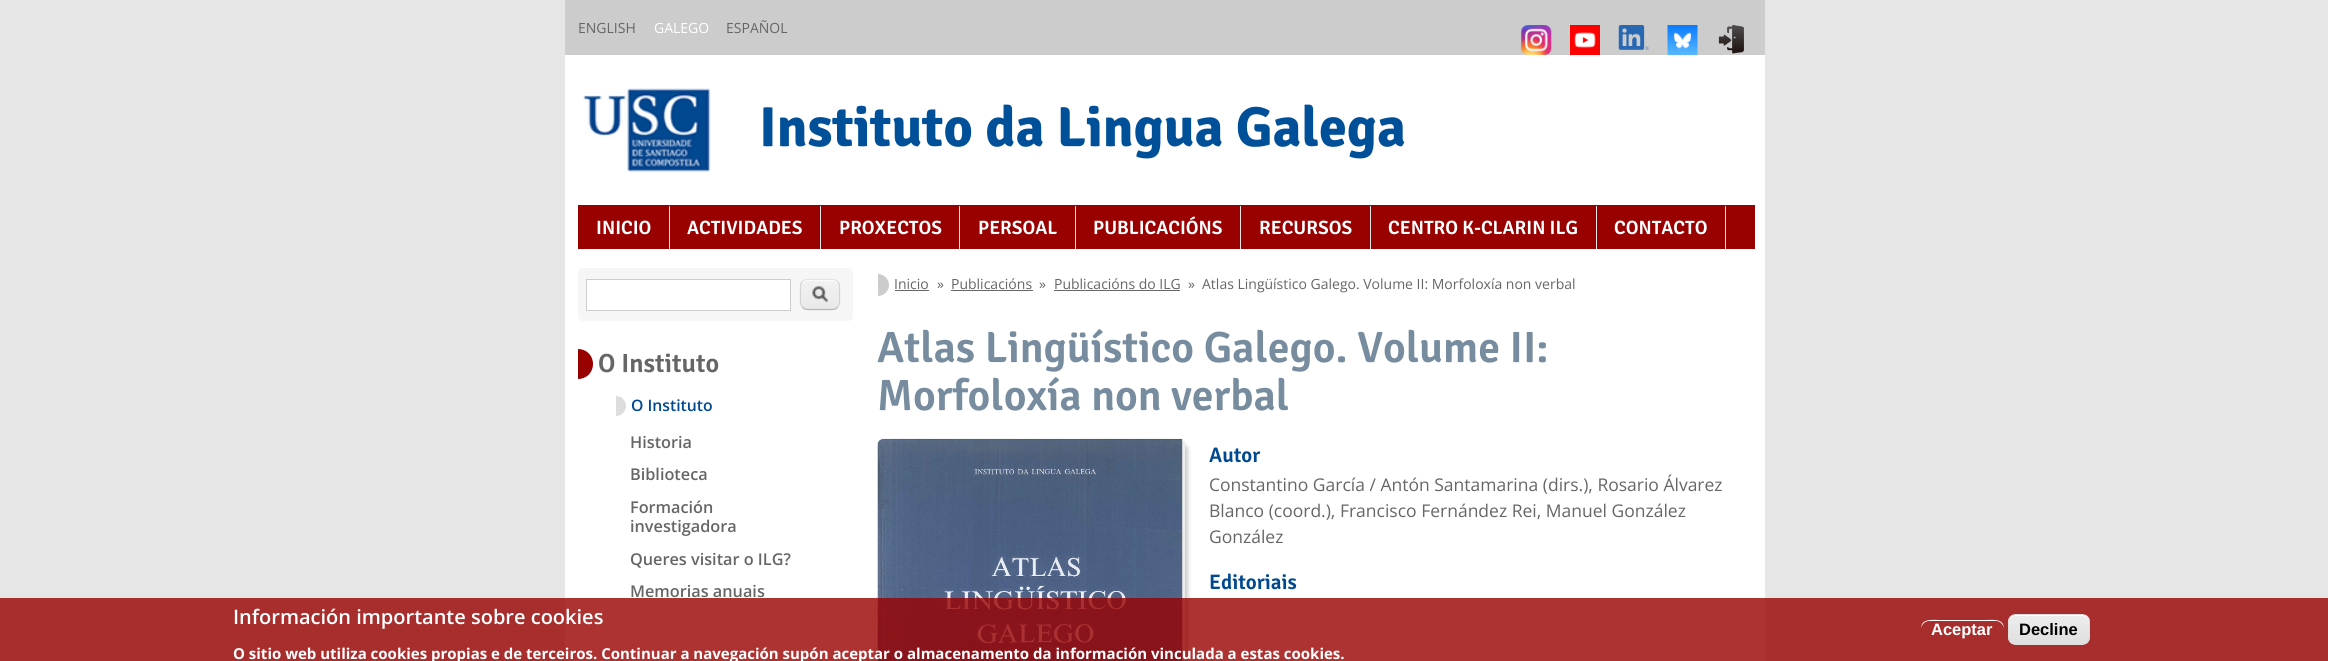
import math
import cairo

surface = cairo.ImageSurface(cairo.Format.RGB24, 2328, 661)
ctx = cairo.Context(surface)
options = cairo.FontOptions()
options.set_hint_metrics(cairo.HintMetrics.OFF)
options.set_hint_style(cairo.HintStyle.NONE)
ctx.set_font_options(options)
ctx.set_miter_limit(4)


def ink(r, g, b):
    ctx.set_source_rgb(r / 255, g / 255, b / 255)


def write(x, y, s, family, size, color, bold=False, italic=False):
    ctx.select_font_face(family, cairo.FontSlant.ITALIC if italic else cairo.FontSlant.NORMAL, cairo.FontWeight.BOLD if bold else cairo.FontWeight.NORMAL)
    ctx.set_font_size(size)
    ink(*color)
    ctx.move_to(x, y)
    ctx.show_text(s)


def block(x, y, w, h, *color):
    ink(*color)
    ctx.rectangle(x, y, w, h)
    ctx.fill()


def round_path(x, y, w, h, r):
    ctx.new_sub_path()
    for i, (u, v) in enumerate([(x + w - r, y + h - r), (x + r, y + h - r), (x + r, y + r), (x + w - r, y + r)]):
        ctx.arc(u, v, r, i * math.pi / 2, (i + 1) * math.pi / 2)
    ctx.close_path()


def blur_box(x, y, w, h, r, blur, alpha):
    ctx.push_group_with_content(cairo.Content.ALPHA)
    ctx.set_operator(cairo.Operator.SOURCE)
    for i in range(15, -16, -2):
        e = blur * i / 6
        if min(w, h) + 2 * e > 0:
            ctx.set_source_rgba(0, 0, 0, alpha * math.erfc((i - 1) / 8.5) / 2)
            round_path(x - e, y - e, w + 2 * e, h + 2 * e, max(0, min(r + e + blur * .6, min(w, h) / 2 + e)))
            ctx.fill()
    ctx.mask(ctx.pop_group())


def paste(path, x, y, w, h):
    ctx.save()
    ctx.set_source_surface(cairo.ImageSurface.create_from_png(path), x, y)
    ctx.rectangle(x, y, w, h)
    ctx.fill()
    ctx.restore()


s1 = dict(family="Open Sans", size=14, color=(102, 102, 102))
s2 = dict(family="Open Sans", size=14, color=(255, 255, 255))
s3 = dict(family="Signika", size=56.25, color=(0, 80, 153), bold=True)
s4 = dict(family="Signika SemiBold", size=19.25, color=(255, 255, 255))
s5 = dict(family="Signika SemiBold", size=26.25, color=(102, 102, 102))
s6 = dict(family="Open Sans SemiBold", size=15.75, color=(0, 73, 144))
s7 = dict(family="Open Sans SemiBold", size=16.25, color=(102, 102, 102))
s8 = dict(family="Signika SemiBold", size=43.75, color=(119, 140, 159))
s9 = dict(family="Signika SemiBold", size=21, color=(0, 73, 144))
s10 = dict(family="Open Sans", size=17.5, color=(102, 102, 102))
s11 = dict(family="Open Sans SemiBold", size=20, color=(255, 255, 255))
s12 = dict(family="Open Sans", size=15, color=(255, 255, 255), bold=True)
s13 = dict(family="Liberation Sans", size=16.5, color=(255, 255, 255), bold=True)
s14 = dict(family="Liberation Sans", size=16.5, color=(0, 0, 0), bold=True)

ink(230, 230, 230)
ctx.paint()
block(565, 55, 1200, 606, 255, 255, 255)
block(565, 0, 1200, 55, 204, 204, 204)
write(578, 33, "ENGLISH", **s1)
write(654, 33, "GALEGO", **s2)
write(726, 33, "ESPAÑOL", **s1)
paste("pic1.png", 1521, 25, 31, 30)
paste("pic2.png", 1570, 25, 30, 30)
paste("pic3.png", 1618, 25, 31, 25)
paste("pic4.png", 1667, 25, 31, 30)
paste("pic5.png", 1718, 25, 26, 29)
paste("pic6.png", 583, 88, 128, 84)
write(759, 146, "Instituto da Lingua Galega", **s3)
block(578, 205, 1177, 44, 153, 0, 0)
block(669, 206, 1, 43, 227, 227, 227)
write(596, 234, "INICIO", **s4)
block(820, 206, 1, 43, 227, 227, 227)
write(687, 234, "ACTIVIDADES", **s4)
block(959, 206, 1, 43, 227, 227, 227)
write(839, 234, "PROXECTOS", **s4)
block(1075, 206, 1, 43, 227, 227, 227)
write(978, 234, "PERSOAL", **s4)
block(1240, 206, 1, 43, 227, 227, 227)
write(1093, 234, "PUBLICACIÓNS", **s4)
block(1370, 206, 1, 43, 227, 227, 227)
write(1259, 234, "RECURSOS", **s4)
block(1596, 206, 1, 43, 227, 227, 227)
write(1388, 234, "CENTRO K-CLARIN ILG", **s4)
block(1725, 206, 1, 43, 227, 227, 227)
write(1614, 234, "CONTACTO", **s4)
ink(246, 246, 246)
round_path(578, 268, 275, 53, 5)
ctx.fill()
ink(255, 255, 255)
ctx.rectangle(586.5, 279.5, 204, 31)
ctx.fill_preserve()
ink(204, 204, 204)
ctx.set_line_width(1)
ctx.stroke()
paste("pic7.png", 800, 280, 40, 30)
ink(255, 255, 255)
ctx.set_fill_rule(cairo.FillRule.EVEN_ODD)
ctx.new_path()
ctx.move_to(808, 281)
ctx.line_to(828, 281)
ctx.curve_to(837.5, 281, 839, 283.5, 839, 290)
ctx.line_to(839, 286)
ctx.curve_to(839, 282.5, 836.5, 280, 833, 280)
ctx.line_to(807, 280)
ctx.curve_to(803.5, 280, 801, 282.5, 801, 286)
ctx.line_to(801, 293)
ctx.curve_to(801, 288, 801, 281, 808, 281)
ctx.close_path()
ctx.move_to(839, 301)
ctx.curve_to(839, 303, 838.5, 305, 838, 306.5)
ctx.curve_to(839, 304.5, 839, 303, 839, 301)
ctx.close_path()
ctx.move_to(801, 304.5)
ctx.line_to(801, 304)
ctx.close_path()
ctx.fill()
ctx.new_path()
ctx.move_to(802.5, 281.5)
ctx.curve_to(804, 280, 805.5, 279.5, 807.5, 279.5)
ctx.line_to(832.5, 279.5)
ctx.curve_to(834.5, 279.5, 836, 280, 837.5, 281.5)
ink(228, 228, 228)
ctx.set_line_width(1.2)
ctx.stroke()
ctx.new_path()
ctx.move_to(837.5, 281.5)
ctx.curve_to(840.5, 284.5, 839.5, 290.5, 839.5, 294.5)
ctx.curve_to(839.5, 298.5, 840.5, 304, 837.5, 307.5)
ink(210, 210, 210)
ctx.stroke()
ctx.new_path()
ctx.move_to(837.5, 307.5)
ctx.curve_to(836, 308.5, 834.5, 309.5, 832.5, 309.5)
ctx.line_to(807.5, 309.5)
ctx.curve_to(805.5, 309.5, 804, 308.5, 802.5, 307.5)
ink(180, 180, 180)
ctx.stroke()
ctx.new_path()
ctx.move_to(802.5, 307.5)
ctx.curve_to(799.5, 304, 800.5, 298.5, 800.5, 294.5)
ctx.curve_to(800.5, 290.5, 799.5, 284.5, 802.5, 281.5)
ink(210, 210, 210)
ctx.stroke()
ink(153, 0, 0)
ctx.new_path()
ctx.move_to(578, 349)
ctx.curve_to(586.5, 349, 593, 355.5, 593, 364)
ctx.curve_to(593, 372.5, 586.5, 379, 578, 379)
ctx.close_path()
ctx.fill()
write(598, 372, "O Instituto", **s5)
ink(221, 221, 221)
ctx.new_path()
ctx.move_to(616, 396)
ctx.curve_to(621.5, 396, 626, 400.5, 626, 406)
ctx.curve_to(626, 411.5, 621.5, 416, 616, 416)
ctx.close_path()
ctx.fill()
write(631, 411, "O Instituto", **s6)
write(630, 448, "Historia", **s7)
write(630, 480, "Biblioteca", **s7)
write(630, 513, "Formación", **s7)
write(630, 532, "investigadora", **s7)
write(630, 565, "Queres visitar o ILG?", **s7)
write(630, 597, "Memorias anuais", **s7)
ink(221, 221, 221)
ctx.new_path()
ctx.move_to(616, 660)
ctx.curve_to(621.5, 660, 626, 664.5, 626, 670)
ctx.line_to(626, 661)
ctx.curve_to(626, 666.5, 621.5, 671, 616, 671)
ctx.close_path()
ctx.fill()
ink(204, 204, 204)
ctx.new_path()
ctx.move_to(878, 274)
ctx.curve_to(884, 274, 889, 279, 889, 285)
ctx.curve_to(889, 291, 884, 296, 878, 296)
ctx.close_path()
ctx.fill()
write(894, 289, "Inicio", **s1)
block(895, 290, 34, 1, 102, 102, 102)
write(937, 289, "»", **s1)
write(951, 289, "Publicacións", **s1)
block(951, 290, 82, 1, 102, 102, 102)
write(1039, 289, "»", **s1)
write(1054, 289, "Publicacións do ILG", **s1)
block(1054, 290, 126, 1, 102, 102, 102)
write(1188, 289, "»", **s1)
write(1202, 289, "Atlas Lingüístico Galego. Volume II: Morfoloxía non verbal", **s1)
write(877, 362, "Atlas Lingüístico Galego. Volume II:", **s8)
write(877, 410, "Morfoloxía non verbal", **s8)
ink(204, 204, 204)
blur_box(883, 444, 305, 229, 6, 2, 1)
ink(238, 238, 238)
ctx.set_fill_rule(cairo.FillRule.WINDING)
ctx.new_path()
ctx.move_to(880, 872)
ctx.line_to(880, 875)
ctx.line_to(1185, 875)
ctx.line_to(1185, 441)
ctx.line_to(1182, 441)
ctx.line_to(1182, 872)
ctx.close_path()
ctx.fill()
paste("pic8.png", 877, 438, 306, 223)
write(1209, 462, "Autor", **s9)
write(1209, 491, "Constantino García / Antón Santamarina (dirs.), Rosario Álvarez", **s10)
write(1209, 517, "Blanco (coord.), Francisco Fernández Rei, Manuel González", **s10)
write(1209, 543, "González", **s10)
write(1209, 589, "Editoriais", **s9)
ctx.set_source_rgba(0.6, 0, 0, 0.8)
ctx.rectangle(0, 598, 2328, 63)
ctx.fill()
write(233, 624, "Información importante sobre cookies", **s11)
write(233, 659, "O sitio web utiliza cookies propias e de terceiros. Continuar a navegación supón aceptar o almacenamento da información vinculada a estas cookies.", **s12)
ctx.new_path()
ctx.move_to(1929, 621)
ctx.line_to(1996, 621)
ctx.curve_to(2000, 621, 2004, 625, 2004, 629)
ctx.curve_to(2004, 618, 1993, 620, 1985, 620)
ctx.line_to(1940, 620)
ctx.curve_to(1932, 620, 1921, 618, 1921, 629)
ctx.curve_to(1921, 625, 1925, 621, 1929, 621)
ctx.close_path()
ctx.fill()
write(1931, 635, "Aceptar", **s13)
ctx.save()
round_path(2008, 614, 82, 31, 8)
ctx.clip()
gradient = cairo.LinearGradient(2049, 615, 2049, 644)
gradient.add_color_stop_rgba(0.05, 0.929, 0.929, 0.929, 1)
gradient.add_color_stop_rgba(1, 0.875, 0.875, 0.875, 1)
ctx.set_source(gradient)
ctx.rectangle(2008, 615, 82, 29)
ctx.fill()
ctx.restore()
ctx.new_path()
ctx.move_to(2015, 616)
ctx.line_to(2082, 616)
ctx.curve_to(2086, 616, 2089, 619, 2089, 622)
ctx.curve_to(2089, 612, 2078, 615, 2072, 615)
ctx.line_to(2026, 615)
ctx.curve_to(2020, 615, 2009, 612, 2009, 622)
ctx.curve_to(2009, 619, 2012, 616, 2015, 616)
ctx.close_path()
ctx.fill()
round_path(2008.5, 614.5, 81, 30, 7.5)
ink(220, 220, 220)
ctx.set_line_width(1)
ctx.stroke()
write(2019, 635, "Decline", **s14)
surface.write_to_png("screenshot.png")
